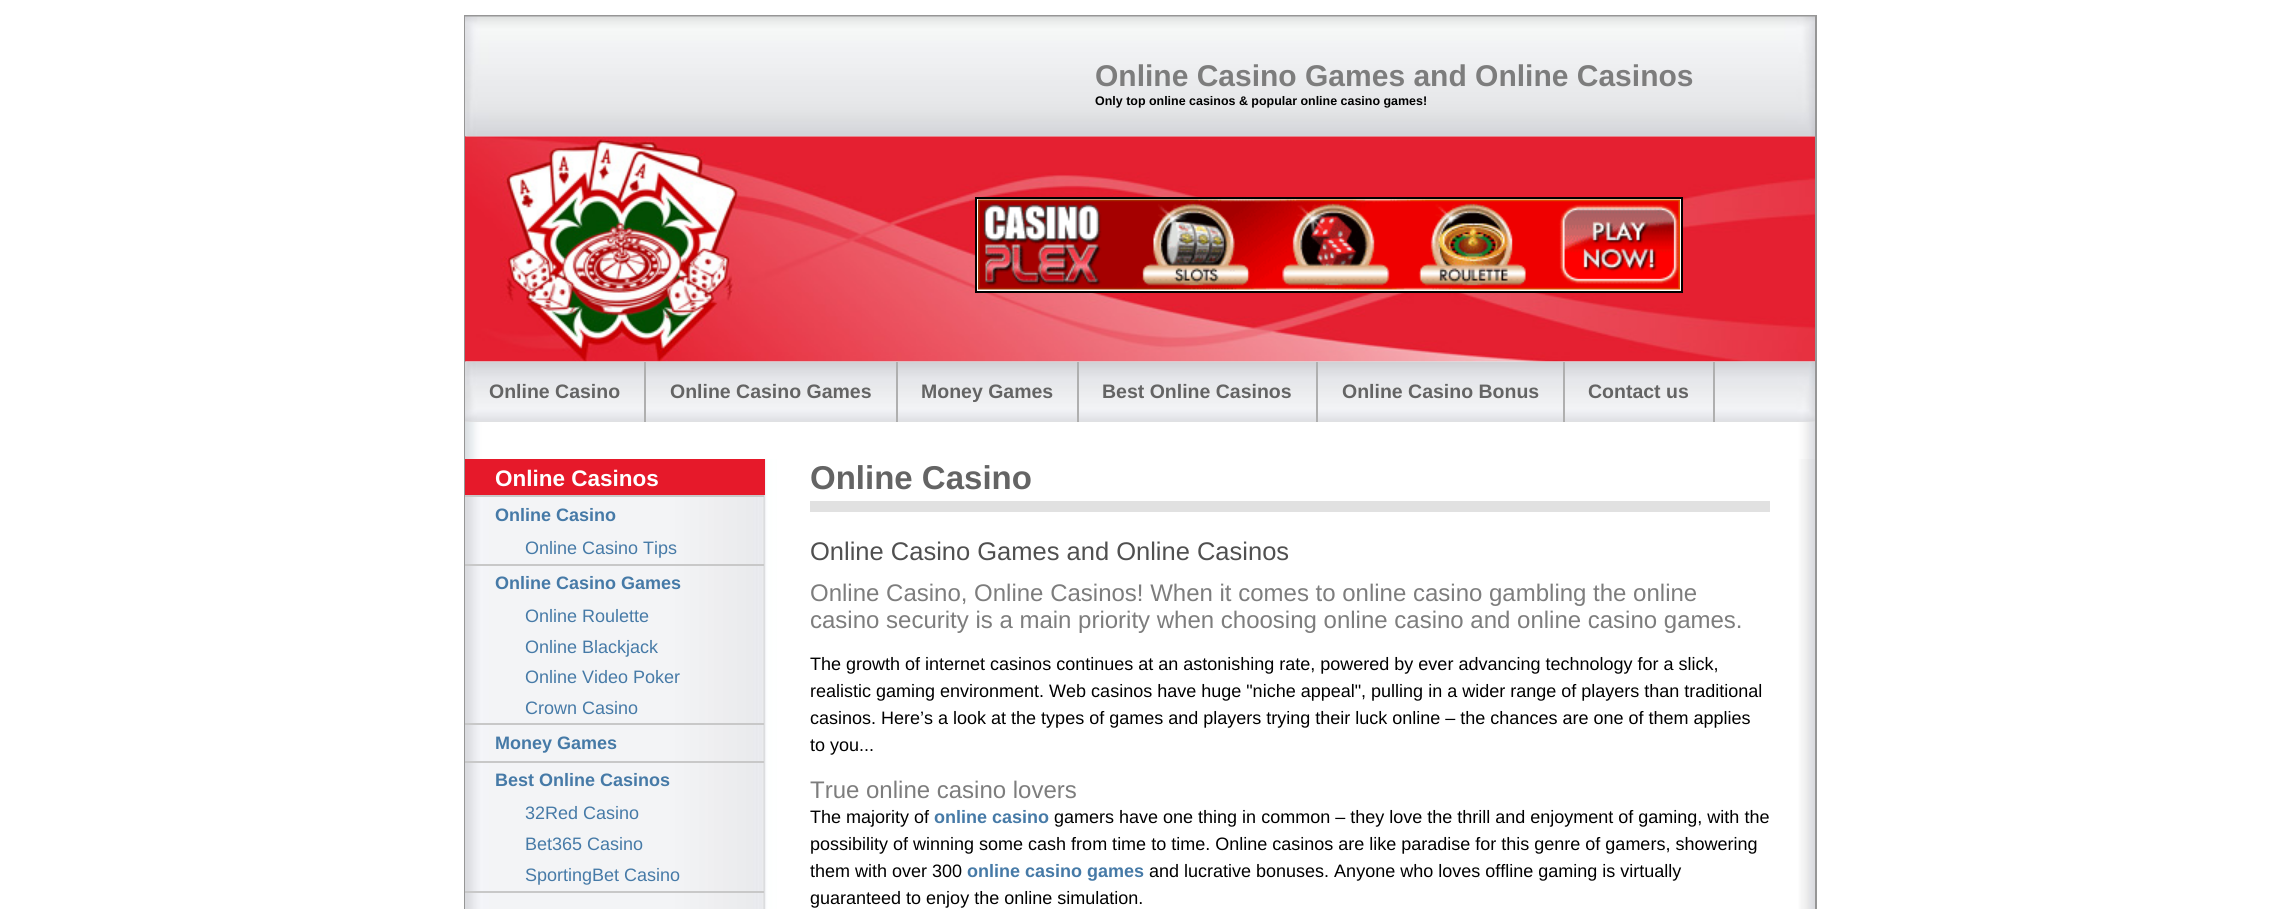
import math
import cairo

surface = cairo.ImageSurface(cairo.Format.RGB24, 2279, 909)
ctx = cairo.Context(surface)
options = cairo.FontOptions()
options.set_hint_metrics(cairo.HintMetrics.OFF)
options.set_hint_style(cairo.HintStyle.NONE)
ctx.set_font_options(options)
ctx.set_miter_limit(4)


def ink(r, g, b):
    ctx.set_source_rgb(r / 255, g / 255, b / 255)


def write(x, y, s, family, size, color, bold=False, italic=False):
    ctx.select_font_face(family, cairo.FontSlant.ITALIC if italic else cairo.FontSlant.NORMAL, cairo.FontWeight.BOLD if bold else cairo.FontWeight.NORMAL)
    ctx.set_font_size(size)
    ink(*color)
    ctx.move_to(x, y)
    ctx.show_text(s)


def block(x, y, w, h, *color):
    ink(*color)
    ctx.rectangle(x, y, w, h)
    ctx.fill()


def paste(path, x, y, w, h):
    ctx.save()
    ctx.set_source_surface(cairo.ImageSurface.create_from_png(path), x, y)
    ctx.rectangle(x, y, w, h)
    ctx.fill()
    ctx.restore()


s1 = dict(family="Liberation Sans", size=30, color=(125, 125, 125), bold=True)
s2 = dict(family="Liberation Sans", size=12.45, color=(0, 0, 0), bold=True)
s3 = dict(family="Liberation Sans", size=19.5, color=(100, 100, 100), bold=True)
s4 = dict(family="Liberation Sans", size=22.5, color=(255, 255, 255), bold=True)
s5 = dict(family="Liberation Sans", size=18, color=(70, 122, 167), bold=True)
s6 = dict(family="Liberation Sans", size=18, color=(70, 122, 167))
s7 = dict(family="Liberation Sans", size=33, color=(100, 100, 100), bold=True)
s8 = dict(family="Liberation Sans", size=25.5, color=(80, 80, 80))
s9 = dict(family="Liberation Sans", size=24, color=(125, 125, 125))
s10 = dict(family="Liberation Sans", size=18, color=(0, 0, 0))

ink(255, 255, 255)
ctx.paint()
ctx.rectangle(465, 16, 1351, 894)
ink(150, 150, 150)
ctx.stroke()
paste("pic1.png", 465, 16, 1350, 121)
write(1095, 86, "Online Casino Games and Online Casinos", **s1)
write(1095, 105, "Only top online casinos & popular online casino games!", **s2)
paste("pic2.png", 465, 136, 1350, 226)
ink(255, 255, 255)
ctx.rectangle(976, 198, 706, 94)
ctx.fill_preserve()
ink(0, 0, 0)
ctx.stroke()
paste("pic3.png", 978, 199, 702, 91)
block(465, 421, 1350, 1, 225, 225, 225)
paste("pic4.png", 465, 361, 1350, 61)
block(644, 362, 2, 60, 175, 175, 175)
write(489, 398, "Online Casino", **s3)
block(896, 362, 2, 60, 175, 175, 175)
write(670, 398, "Online Casino Games", **s3)
block(1077, 362, 2, 60, 175, 175, 175)
write(921, 398, "Money Games", **s3)
block(1316, 362, 2, 60, 175, 175, 175)
write(1102, 398, "Best Online Casinos", **s3)
block(1563, 362, 2, 60, 175, 175, 175)
write(1342, 398, "Online Casino Bonus", **s3)
block(1713, 362, 2, 60, 175, 175, 175)
write(1588, 398, "Contact us", **s3)
paste("pic5.png", 465, 422, 1350, 37)
paste("pic6.png", 465, 459, 1350, 450)
block(465, 459, 300, 36, 230, 25, 42)
write(495, 486, "Online Casinos", **s4)
block(465, 495, 299, 2, 200, 200, 200)
write(495, 521, "Online Casino", **s5)
write(525, 554, "Online Casino Tips", **s6)
block(465, 564, 299, 2, 200, 200, 200)
write(495, 589, "Online Casino Games", **s5)
write(525, 622, "Online Roulette", **s6)
write(525, 653, "Online Blackjack", **s6)
write(525, 683, "Online Video Poker", **s6)
write(525, 714, "Crown Casino", **s6)
block(465, 723, 299, 2, 200, 200, 200)
write(495, 749, "Money Games", **s5)
block(465, 761, 299, 2, 200, 200, 200)
write(495, 786, "Best Online Casinos", **s5)
write(525, 819, "32Red Casino", **s6)
write(525, 850, "Bet365 Casino", **s6)
write(525, 881, "SportingBet Casino", **s6)
block(465, 891, 299, 2, 200, 200, 200)
block(810, 501, 960, 11, 225, 225, 225)
write(810, 489, "Online Casino", **s7)
write(810, 560, "Online Casino Games and Online Casinos", **s8)
write(810, 601, "Online Casino, Online Casinos! When it comes to online casino gambling the online", **s9)
write(810, 628, "casino security is a main priority when choosing online casino and online casino games.", **s9)
write(810, 670, "The growth of internet casinos continues at an astonishing rate, powered by ever advancing technology for a slick,", **s10)
write(810, 697, "realistic gaming environment. Web casinos have huge \"niche appeal\", pulling in a wider range of players than traditional", **s10)
write(810, 724, "casinos. Here’s a look at the types of games and players trying their luck online – the chances are one of them applies", **s10)
write(810, 751, "to you...", **s10)
write(810, 798, "True online casino lovers", **s9)
write(810, 823, "The majority of", **s10)
write(934, 823, "online casino", **s5)
write(1054, 823, "gamers have one thing in common – they love the thrill and enjoyment of gaming, with the", **s10)
write(810, 850, "possibility of winning some cash from time to time. Online casinos are like paradise for this genre of gamers, showering", **s10)
write(810, 877, "them with over 300", **s10)
write(967, 877, "online casino games", **s5)
write(1149, 877, "and lucrative bonuses. Anyone who loves offline gaming is virtually", **s10)
write(810, 904, "guaranteed to enjoy the online simulation.", **s10)
surface.write_to_png("screenshot.png")
